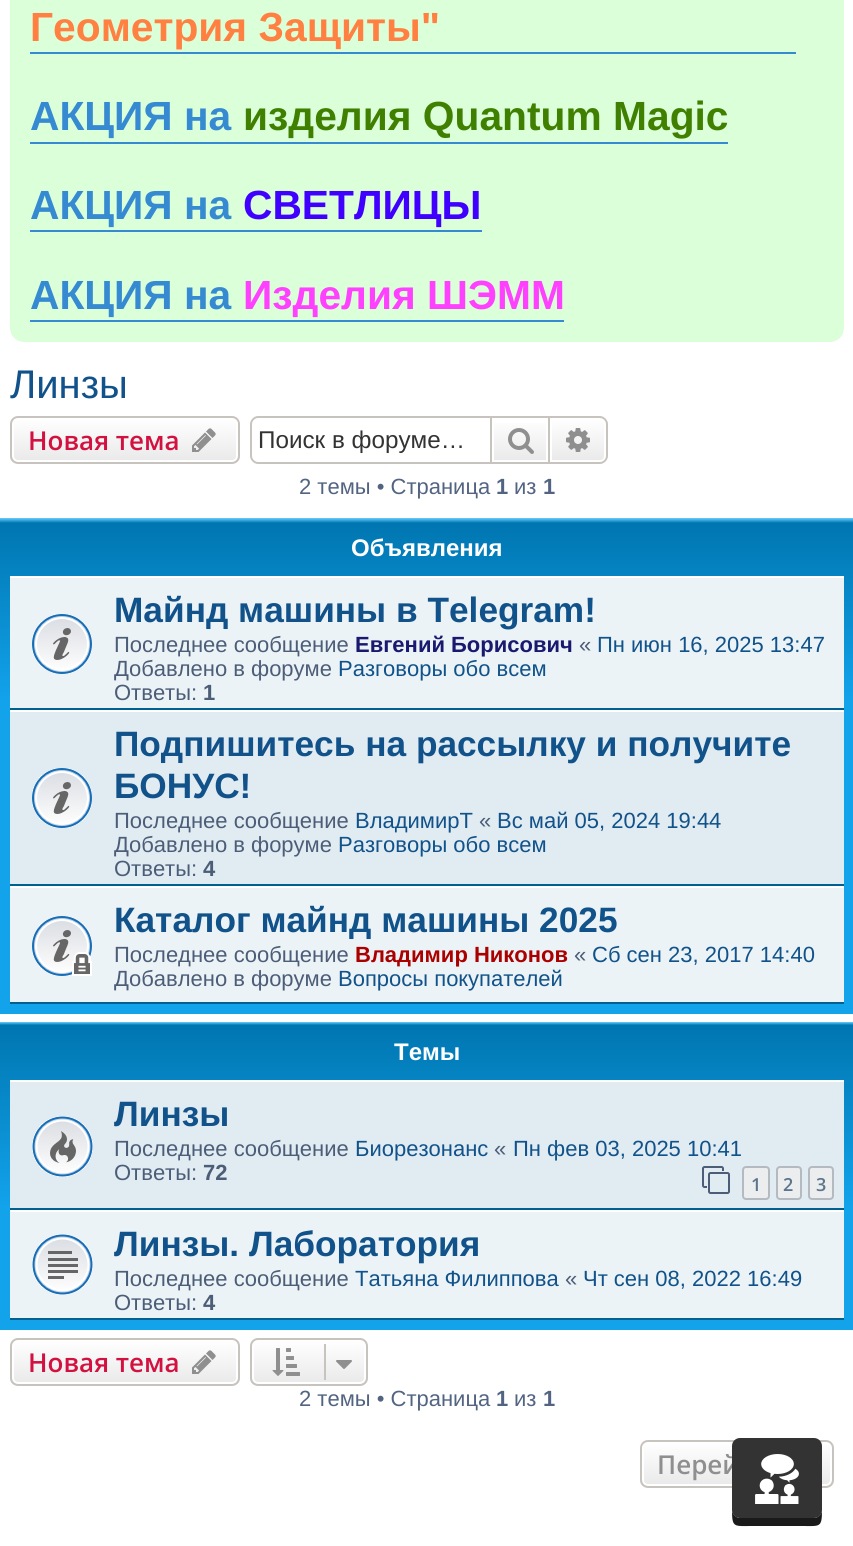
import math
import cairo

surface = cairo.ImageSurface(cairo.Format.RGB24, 853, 1546)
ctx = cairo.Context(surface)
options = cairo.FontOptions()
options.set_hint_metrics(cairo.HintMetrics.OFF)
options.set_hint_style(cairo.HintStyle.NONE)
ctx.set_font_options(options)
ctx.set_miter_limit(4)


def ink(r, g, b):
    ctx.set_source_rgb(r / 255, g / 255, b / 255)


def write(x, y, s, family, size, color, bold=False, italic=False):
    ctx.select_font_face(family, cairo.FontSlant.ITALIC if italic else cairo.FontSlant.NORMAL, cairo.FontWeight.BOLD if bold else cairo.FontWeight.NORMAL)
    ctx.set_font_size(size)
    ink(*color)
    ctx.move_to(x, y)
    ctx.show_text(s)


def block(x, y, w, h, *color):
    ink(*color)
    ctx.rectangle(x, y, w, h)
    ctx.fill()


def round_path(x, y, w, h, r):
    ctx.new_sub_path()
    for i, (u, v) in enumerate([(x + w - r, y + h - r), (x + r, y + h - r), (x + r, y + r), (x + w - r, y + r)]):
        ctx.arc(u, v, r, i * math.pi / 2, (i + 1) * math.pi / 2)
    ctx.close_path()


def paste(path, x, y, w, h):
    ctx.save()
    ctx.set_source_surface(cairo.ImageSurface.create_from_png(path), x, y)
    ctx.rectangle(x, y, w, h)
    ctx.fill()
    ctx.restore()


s1 = dict(family="Liberation Sans", size=40.75, color=(255, 128, 64), bold=True)
s2 = dict(family="Liberation Sans", size=40.75, color=(54, 138, 210), bold=True)
s3 = dict(family="Liberation Sans", size=40.75, color=(64, 128, 0), bold=True)
s4 = dict(family="Liberation Sans", size=40.75, color=(64, 0, 255), bold=True)
s5 = dict(family="Liberation Sans", size=40.75, color=(255, 64, 255), bold=True)
s6 = dict(family="Liberation Sans", size=40, color=(16, 82, 137))
s7 = dict(family="Open Sans SemiBold", size=26, color=(211, 17, 65))
s8 = dict(family="Liberation Sans", size=24.25, color=(51, 51, 51))
s9 = dict(family="Liberation Sans", size=22, color=(83, 100, 130))
s10 = dict(family="Liberation Sans", size=22, color=(83, 100, 130), bold=True)
s11 = dict(family="Liberation Sans", size=24, color=(255, 255, 255), bold=True)
s12 = dict(family="Liberation Sans", size=35.25, color=(16, 82, 137), bold=True)
s13 = dict(family="Liberation Sans", size=22, color=(76, 93, 119))
s14 = dict(family="Liberation Sans", size=22, color=(25, 25, 112), bold=True)
s15 = dict(family="Liberation Sans", size=22, color=(16, 82, 137))
s16 = dict(family="Liberation Sans", size=22, color=(76, 93, 119), bold=True)
s17 = dict(family="Liberation Sans", size=22, color=(170, 0, 0), bold=True)
s18 = dict(family="Open Sans SemiBold", size=18, color=(92, 117, 140))
s19 = dict(family="Open Sans SemiBold", size=26, color=(143, 143, 143))

ink(255, 255, 255)
ctx.paint()
ink(219, 255, 217)
round_path(10, -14, 834, 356, 14)
ctx.fill()
block(30, 52, 766, 2, 54, 138, 210)
write(30, 41, "Геометрия Защиты\"", **s1)
block(30, 142, 698, 2, 54, 138, 210)
write(30, 130, "АКЦИЯ на", **s2)
write(243, 130, "изделия Quantum Magic", **s3)
block(30, 230, 452, 2, 54, 138, 210)
write(30, 219, "АКЦИЯ на", **s2)
write(243, 219, "СВЕТЛИЦЫ", **s4)
block(30, 320, 534, 2, 54, 138, 210)
write(30, 309, "АКЦИЯ на", **s2)
write(243, 309, "Изделия ШЭММ", **s5)
write(10, 398, "Линзы", **s6)
ctx.save()
round_path(10, 416, 230, 48, 8)
ctx.clip()
gradient = cairo.LinearGradient(125, 418, 125, 462)
gradient.add_color_stop_rgba(0, 1, 1, 1, 1)
gradient.add_color_stop_rgba(1, 0.914, 0.914, 0.914, 1)
ctx.set_source(gradient)
ctx.rectangle(10, 418, 230, 44)
ctx.fill()
ctx.restore()
round_path(13, 419, 224, 42, 5)
ink(255, 255, 255)
ctx.stroke()
round_path(11, 417, 228, 46, 7)
ink(199, 195, 191)
ctx.stroke()
write(28, 450, "Новая тема", **s7)
paste("pic1.png", 192, 428, 24, 24)
ink(199, 195, 191)
ctx.set_fill_rule(cairo.FillRule.EVEN_ODD)
ctx.new_path()
ctx.move_to(258, 416)
ctx.line_to(490, 416)
ctx.line_to(490, 464)
ctx.line_to(258, 464)
ctx.curve_to(254, 464, 250, 460, 250, 456)
ctx.line_to(250, 424)
ctx.curve_to(250, 420, 254, 416, 258, 416)
ctx.close_path()
ctx.move_to(258, 418)
ctx.line_to(490, 418)
ctx.line_to(490, 462)
ctx.line_to(258, 462)
ctx.curve_to(255, 462, 252, 459, 252, 456)
ctx.line_to(252, 424)
ctx.curve_to(252, 421, 255, 418, 258, 418)
ctx.close_path()
ctx.fill()
write(258, 448, "Поиск в форуме…", **s8)
gradient = cairo.LinearGradient(520, 418, 520, 462)
gradient.add_color_stop_rgba(0, 1, 1, 1, 1)
gradient.add_color_stop_rgba(1, 0.914, 0.914, 0.914, 1)
ctx.set_source(gradient)
ctx.rectangle(494, 423, 52, 37)
ctx.fill()
ctx.rectangle(491, 417, 58, 46)
ink(199, 195, 191)
ctx.stroke()
paste("pic2.png", 508, 428, 26, 26)
gradient = cairo.LinearGradient(578, 418, 578, 462)
gradient.add_color_stop_rgba(0, 1, 1, 1, 1)
gradient.add_color_stop_rgba(1, 0.914, 0.914, 0.914, 1)
ctx.set_source(gradient)
ctx.new_path()
ctx.move_to(551, 419)
ctx.line_to(600, 419)
ctx.curve_to(603, 419, 605, 421, 605, 424)
ctx.line_to(605, 456)
ctx.curve_to(605, 459, 603, 461, 600, 461)
ctx.line_to(551, 461)
ctx.close_path()
ctx.fill_preserve()
ink(255, 255, 255)
ctx.stroke()
ink(199, 195, 191)
ctx.new_path()
ctx.move_to(550, 416)
ctx.line_to(600, 416)
ctx.curve_to(604, 416, 608, 420, 608, 424)
ctx.line_to(608, 456)
ctx.curve_to(608, 460, 604, 464, 600, 464)
ctx.line_to(550, 464)
ctx.close_path()
ctx.move_to(550, 418)
ctx.line_to(600, 418)
ctx.curve_to(603, 418, 606, 421, 606, 424)
ctx.line_to(606, 456)
ctx.curve_to(606, 459, 603, 462, 600, 462)
ctx.line_to(550, 462)
ctx.close_path()
ctx.fill()
paste("pic3.png", 566, 428, 24, 24)
write(299, 494, "2 темы • Страница", **s9)
write(496, 494, "1", **s10)
write(514, 494, "из", **s9)
write(543, 494, "1", **s10)
gradient = cairo.LinearGradient(427, 518, 427, 1014)
gradient.add_color_stop_rgba(0, 0.416, 0.808, 1, 1)
gradient.add_color_stop_rgba(0.01, 0, 0.463, 0.694, 1)
gradient.add_color_stop_rgba(0.37, 0.071, 0.639, 0.922, 1)
gradient.add_color_stop_rgba(1, 0.071, 0.639, 0.922, 1)
ctx.set_source(gradient)
ctx.rectangle(0, 518, 853, 496)
ctx.fill()
write(351, 556, "Объявления", **s11)
block(10, 578, 834, 130, 236, 243, 247)
block(10, 576, 834, 2, 255, 255, 255)
block(10, 708, 834, 2, 0, 96, 143)
paste("pic4.png", 32, 614, 60, 60)
write(114, 622, "Майнд машины в Telegram!", **s12)
write(114, 652, "Последнее сообщение", **s13)
write(355, 652, "Евгений Борисович", **s14)
write(579, 652, "«", **s13)
write(597, 652, "Пн июн 16, 2025 13:47", **s15)
write(114, 676, "Добавлено в форуме", **s13)
write(338, 676, "Разговоры обо всем", **s15)
write(114, 700, "Ответы:", **s13)
write(203, 700, "1", **s16)
block(10, 712, 834, 172, 225, 235, 242)
block(10, 710, 834, 2, 255, 255, 255)
block(10, 884, 834, 2, 0, 96, 143)
paste("pic5.png", 32, 768, 60, 60)
write(114, 756, "Подпишитесь на рассылку и получите", **s12)
write(114, 798, "БОНУС!", **s12)
write(114, 828, "Последнее сообщение", **s13)
write(355, 828, "ВладимирТ", **s15)
write(479, 828, "«", **s13)
write(497, 828, "Вс май 05, 2024 19:44", **s15)
write(114, 852, "Добавлено в форуме", **s13)
write(338, 852, "Разговоры обо всем", **s15)
write(114, 876, "Ответы:", **s13)
write(203, 876, "4", **s16)
block(10, 888, 834, 114, 236, 243, 247)
block(10, 886, 834, 2, 255, 255, 255)
block(10, 1002, 834, 2, 0, 96, 143)
paste("pic6.png", 32, 916, 60, 60)
write(114, 932, "Каталог майнд машины 2025", **s12)
write(114, 962, "Последнее сообщение", **s13)
write(355, 962, "Владимир Никонов", **s17)
write(574, 962, "«", **s13)
write(592, 962, "Сб сен 23, 2017 14:40", **s15)
write(114, 986, "Добавлено в форуме", **s13)
write(338, 986, "Вопросы покупателей", **s15)
gradient = cairo.LinearGradient(427, 1022, 427, 1330)
gradient.add_color_stop_rgba(0, 0.416, 0.808, 1, 1)
gradient.add_color_stop_rgba(0.01, 0, 0.463, 0.694, 1)
gradient.add_color_stop_rgba(0.6, 0.071, 0.639, 0.922, 1)
gradient.add_color_stop_rgba(1, 0.071, 0.639, 0.922, 1)
ctx.set_source(gradient)
ctx.rectangle(0, 1022, 853, 308)
ctx.fill()
write(394, 1060, "Темы", **s11)
block(10, 1082, 834, 126, 225, 235, 242)
block(10, 1080, 834, 2, 255, 255, 255)
block(10, 1208, 834, 2, 0, 96, 143)
paste("pic7.png", 32, 1116, 61, 61)
write(114, 1126, "Линзы", **s12)
write(114, 1156, "Последнее сообщение", **s13)
write(355, 1156, "Биорезонанс", **s15)
write(494, 1156, "«", **s13)
write(513, 1156, "Пн фев 03, 2025 10:41", **s15)
write(114, 1180, "Ответы:", **s13)
write(203, 1180, "72", **s16)
paste("pic8.png", 702, 1166, 28, 28)
ink(236, 237, 238)
round_path(743, 1167, 26, 32, 3)
ctx.fill_preserve()
ink(180, 186, 192)
ctx.stroke()
write(751, 1191, "1", **s18)
ink(236, 237, 238)
round_path(777, 1167, 24, 32, 3)
ctx.fill_preserve()
ink(180, 186, 192)
ctx.stroke()
write(783, 1191, "2", **s18)
ink(236, 237, 238)
round_path(809, 1167, 24, 32, 3)
ctx.fill_preserve()
ink(180, 186, 192)
ctx.stroke()
write(816, 1191, "3", **s18)
block(10, 1212, 834, 106, 236, 243, 247)
block(10, 1210, 834, 2, 255, 255, 255)
block(10, 1318, 834, 2, 0, 96, 143)
paste("pic9.png", 32, 1234, 61, 61)
write(114, 1256, "Линзы. Лаборатория", **s12)
write(114, 1286, "Последнее сообщение", **s13)
write(355, 1286, "Татьяна Филиппова", **s15)
write(565, 1286, "«", **s13)
write(583, 1286, "Чт сен 08, 2022 16:49", **s15)
write(114, 1310, "Ответы:", **s13)
write(203, 1310, "4", **s16)
ctx.save()
ctx.set_fill_rule(cairo.FillRule.WINDING)
round_path(10, 1338, 230, 48, 8)
ctx.clip()
gradient = cairo.LinearGradient(125, 1340, 125, 1384)
gradient.add_color_stop_rgba(0, 1, 1, 1, 1)
gradient.add_color_stop_rgba(1, 0.914, 0.914, 0.914, 1)
ctx.set_source(gradient)
ctx.rectangle(10, 1340, 230, 44)
ctx.fill()
ctx.restore()
round_path(13, 1341, 224, 42, 5)
ink(255, 255, 255)
ctx.stroke()
round_path(11, 1339, 228, 46, 7)
ink(199, 195, 191)
ctx.stroke()
write(28, 1372, "Новая тема", **s7)
paste("pic1.png", 192, 1350, 24, 24)
ctx.save()
ctx.set_fill_rule(cairo.FillRule.WINDING)
round_path(250, 1338, 118, 48, 8)
ctx.clip()
gradient = cairo.LinearGradient(309, 1340, 309, 1384)
gradient.add_color_stop_rgba(0, 1, 1, 1, 1)
gradient.add_color_stop_rgba(1, 0.914, 0.914, 0.914, 1)
ctx.set_source(gradient)
ctx.rectangle(250, 1340, 118, 44)
ctx.fill()
ctx.restore()
round_path(253, 1341, 112, 42, 5)
ink(255, 255, 255)
ctx.stroke()
round_path(251, 1339, 116, 46, 7)
ink(199, 195, 191)
ctx.stroke()
paste("pic10.png", 272, 1348, 28, 28)
block(324, 1344, 2, 36, 199, 195, 191)
paste("pic11.png", 336, 1360, 16, 9)
write(299, 1406, "2 темы • Страница", **s9)
write(496, 1406, "1", **s10)
write(514, 1406, "из", **s9)
write(543, 1406, "1", **s10)
ctx.save()
ctx.set_fill_rule(cairo.FillRule.WINDING)
round_path(640, 1440, 194, 48, 8)
ctx.clip()
gradient = cairo.LinearGradient(737, 1442, 737, 1486)
gradient.add_color_stop_rgba(0, 1, 1, 1, 1)
gradient.add_color_stop_rgba(1, 0.914, 0.914, 0.914, 1)
ctx.set_source(gradient)
ctx.rectangle(640, 1442, 194, 44)
ctx.fill()
ctx.restore()
round_path(643, 1443, 188, 42, 5)
ink(255, 255, 255)
ctx.stroke()
round_path(641, 1441, 192, 46, 7)
ink(199, 195, 191)
ctx.stroke()
write(657, 1474, "Перей", **s19)
ink(26, 26, 26)
ctx.set_fill_rule(cairo.FillRule.WINDING)
ctx.new_path()
ctx.move_to(732, 1510)
ctx.curve_to(732, 1528, 734, 1526, 752, 1526)
ctx.line_to(802, 1526)
ctx.curve_to(820, 1526, 822, 1528, 822, 1510)
ctx.curve_to(822, 1514, 818, 1518, 814, 1518)
ctx.line_to(740, 1518)
ctx.curve_to(736, 1518, 732, 1514, 732, 1510)
ctx.close_path()
ctx.fill()
ink(51, 51, 51)
round_path(732, 1438, 90, 80, 8)
ctx.fill()
paste("pic12.png", 755, 1454, 44, 50)
surface.write_to_png("screenshot.png")
